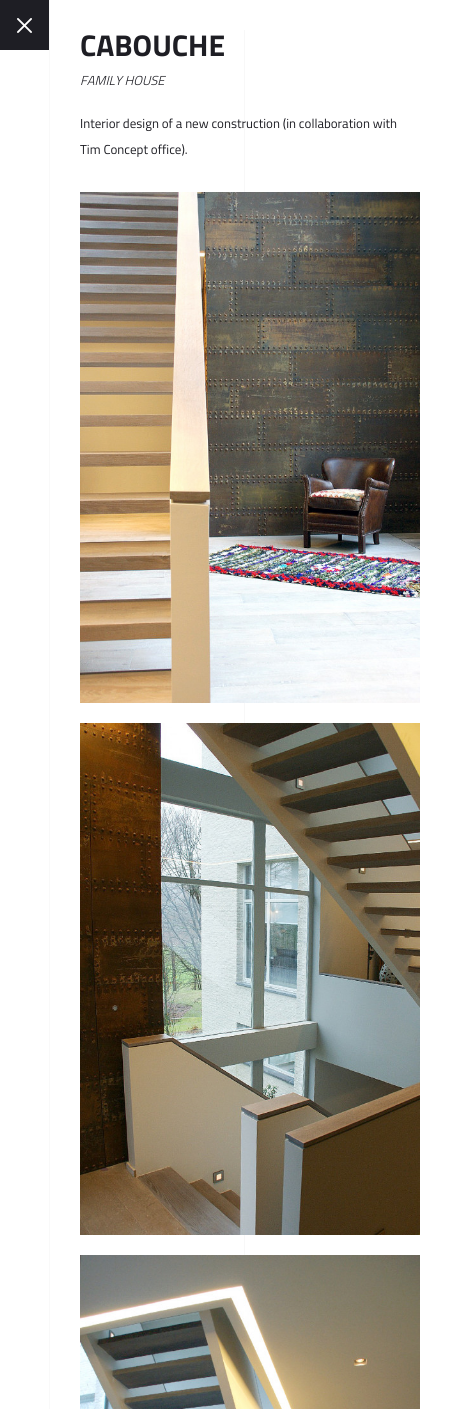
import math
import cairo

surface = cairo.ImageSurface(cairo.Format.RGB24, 450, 1409)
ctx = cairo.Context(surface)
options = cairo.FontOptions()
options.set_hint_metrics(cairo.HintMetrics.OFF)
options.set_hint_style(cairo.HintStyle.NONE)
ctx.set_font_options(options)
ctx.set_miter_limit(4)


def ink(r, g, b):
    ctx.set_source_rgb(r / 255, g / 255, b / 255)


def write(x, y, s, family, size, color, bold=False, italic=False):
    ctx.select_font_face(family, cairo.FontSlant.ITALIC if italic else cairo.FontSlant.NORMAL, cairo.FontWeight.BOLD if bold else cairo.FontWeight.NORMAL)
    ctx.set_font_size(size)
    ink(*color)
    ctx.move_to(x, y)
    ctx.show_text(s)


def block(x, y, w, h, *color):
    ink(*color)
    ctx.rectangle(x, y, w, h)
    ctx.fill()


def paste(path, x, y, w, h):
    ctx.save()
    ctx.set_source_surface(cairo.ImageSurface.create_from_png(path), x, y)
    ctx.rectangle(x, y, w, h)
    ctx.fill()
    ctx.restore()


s1 = dict(family="Titillium Web", size=30, color=(30, 30, 36), bold=True)
s2 = dict(family="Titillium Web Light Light", size=13, color=(30, 30, 36), italic=True)
s3 = dict(family="Titillium Web", size=13, color=(30, 30, 36))

ink(255, 255, 255)
ctx.paint()
block(49, 0, 1, 1409, 249, 249, 249)
block(0, 0, 49, 50, 30, 30, 36)
paste("pic1.png", 17, 18, 15, 15)
block(244, 30, 1, 1225, 248, 248, 248)
write(80, 56, "CABOUCHE", **s1)
write(80, 85, "FAMILY HOUSE", **s2)
write(80, 128, "Interior design of a new construction (in collaboration with", **s3)
write(80, 154, "Tim Concept office).", **s3)
paste("pic2.png", 80, 192, 340, 511)
paste("pic3.png", 80, 723, 340, 512)
paste("pic4.png", 80, 1255, 340, 154)
surface.write_to_png("screenshot.png")
